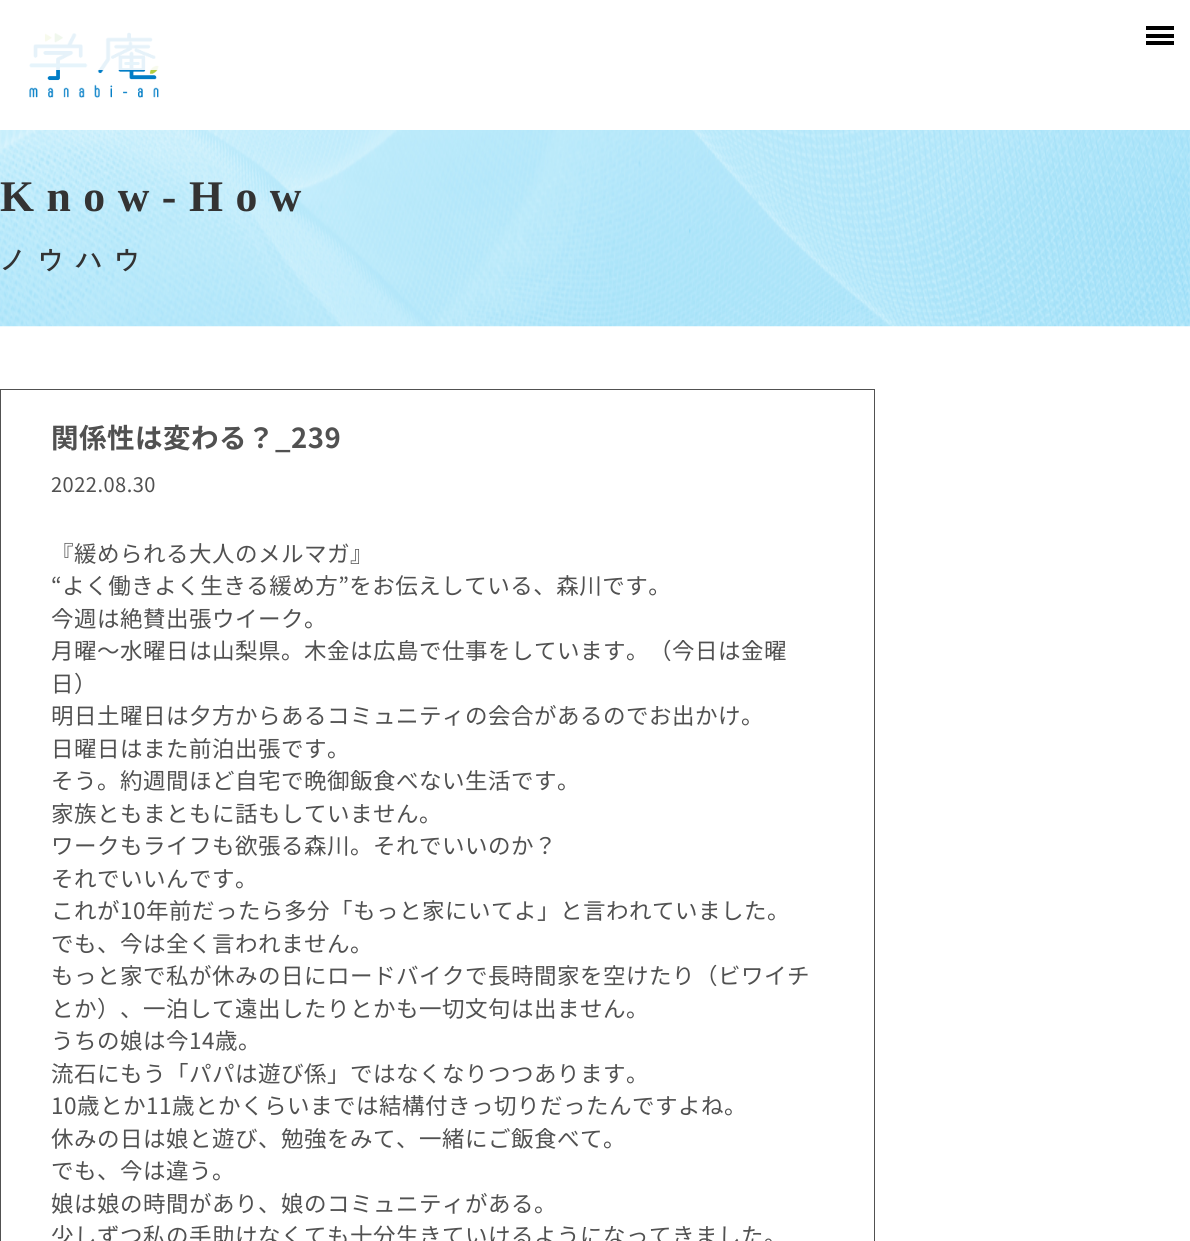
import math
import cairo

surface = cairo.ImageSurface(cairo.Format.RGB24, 1190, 1241)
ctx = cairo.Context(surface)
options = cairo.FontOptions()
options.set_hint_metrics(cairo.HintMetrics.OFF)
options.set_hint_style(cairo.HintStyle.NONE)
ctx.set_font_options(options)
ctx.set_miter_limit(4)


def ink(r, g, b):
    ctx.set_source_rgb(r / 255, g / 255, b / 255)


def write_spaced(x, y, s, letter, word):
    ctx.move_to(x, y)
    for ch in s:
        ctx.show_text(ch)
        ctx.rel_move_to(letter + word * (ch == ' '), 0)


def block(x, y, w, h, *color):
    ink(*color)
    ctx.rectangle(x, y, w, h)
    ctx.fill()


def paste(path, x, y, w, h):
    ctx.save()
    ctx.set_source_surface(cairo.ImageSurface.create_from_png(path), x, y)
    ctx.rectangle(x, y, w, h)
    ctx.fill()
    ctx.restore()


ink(255, 255, 255)
ctx.paint()
paste("pic1.png", 29, 32, 130, 66)
ctx.set_source_rgba(1, 1, 1, 0.9)
ctx.rectangle(29, 32, 130, 38)
ctx.fill()
block(1146, 26, 28, 4, 0, 0, 0)
block(1146, 34, 28, 4, 0, 0, 0)
block(1146, 41, 28, 4, 0, 0, 0)
paste("pic2.png", 0, 130, 1190, 197)
ctx.select_font_face("Liberation Serif", cairo.FontSlant.NORMAL, cairo.FontWeight.BOLD)
ctx.set_font_size(43.75)
ink(51, 51, 51)
write_spaced(0, 211, "Know-How", 12.5, 0)
ctx.select_font_face("WenQuanYi Zen Hei", cairo.FontSlant.NORMAL, cairo.FontWeight.BOLD)
ctx.set_font_size(25)
write_spaced(0, 268, "ノウハウ", 12.5, 0)
ctx.rectangle(0.5, 389.5, 874, 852)
ink(81, 81, 81)
ctx.set_line_width(1)
ctx.stroke()
ctx.select_font_face("Noto Sans JP", cairo.FontSlant.NORMAL, cairo.FontWeight.BOLD)
ctx.set_font_size(27.5)
write_spaced(51, 448, "関係性は変わる？_239", 0.5, 0)
ctx.select_font_face("Noto Sans JP")
ctx.set_font_size(20)
write_spaced(51, 492, "2022.08.30", 0.5, 0)
ctx.set_font_size(22.5)
write_spaced(51, 562, "『緩められる大人のメルマガ』", 0.5, 0)
write_spaced(51, 594, "“よく働きよく生きる緩め方”をお伝えしている、森川です。", 0.5, 0)
write_spaced(51, 627, "今週は絶賛出張ウイーク。", 0.5, 0)
write_spaced(51, 659, "月曜～水曜日は山梨県。木金は広島で仕事をしています。（今日は金曜", 0.5, 0)
write_spaced(51, 692, "日）", 0.5, 0)
write_spaced(51, 724, "明日土曜日は夕方からあるコミュニティの会合があるのでお出かけ。", 0.5, 0)
write_spaced(51, 757, "日曜日はまた前泊出張です。", 0.5, 0)
write_spaced(51, 789, "そう。約週間ほど自宅で晩御飯食べない生活です。", 0.5, 0)
write_spaced(51, 822, "家族ともまともに話もしていません。", 0.5, 0)
write_spaced(51, 854, "ワークもライフも欲張る森川。それでいいのか？", 0.5, 0)
write_spaced(51, 887, "それでいいんです。", 0.5, 0)
write_spaced(51, 919, "これが10年前だったら多分「もっと家にいてよ」と言われていました。", 0.5, 0)
write_spaced(51, 952, "でも、今は全く言われません。", 0.5, 0)
write_spaced(51, 984, "もっと家で私が休みの日にロードバイクで長時間家を空けたり（ビワイチ", 0.5, 0)
write_spaced(51, 1017, "とか）、一泊して遠出したりとかも一切文句は出ません。", 0.5, 0)
write_spaced(51, 1049, "うちの娘は今14歳。", 0.5, 0)
write_spaced(51, 1082, "流石にもう「パパは遊び係」ではなくなりつつあります。", 0.5, 0)
write_spaced(51, 1114, "10歳とか11歳とかくらいまでは結構付きっ切りだったんですよね。", 0.5, 0)
write_spaced(51, 1147, "休みの日は娘と遊び、勉強をみて、一緒にご飯食べて。", 0.5, 0)
write_spaced(51, 1179, "でも、今は違う。", 0.5, 0)
write_spaced(51, 1212, "娘は娘の時間があり、娘のコミュニティがある。", 0.5, 0)
write_spaced(51, 1244, "少しずつ私の手助けなくても十分生きていけるようになってきました。", 0.5, 0)
surface.write_to_png("screenshot.png")
